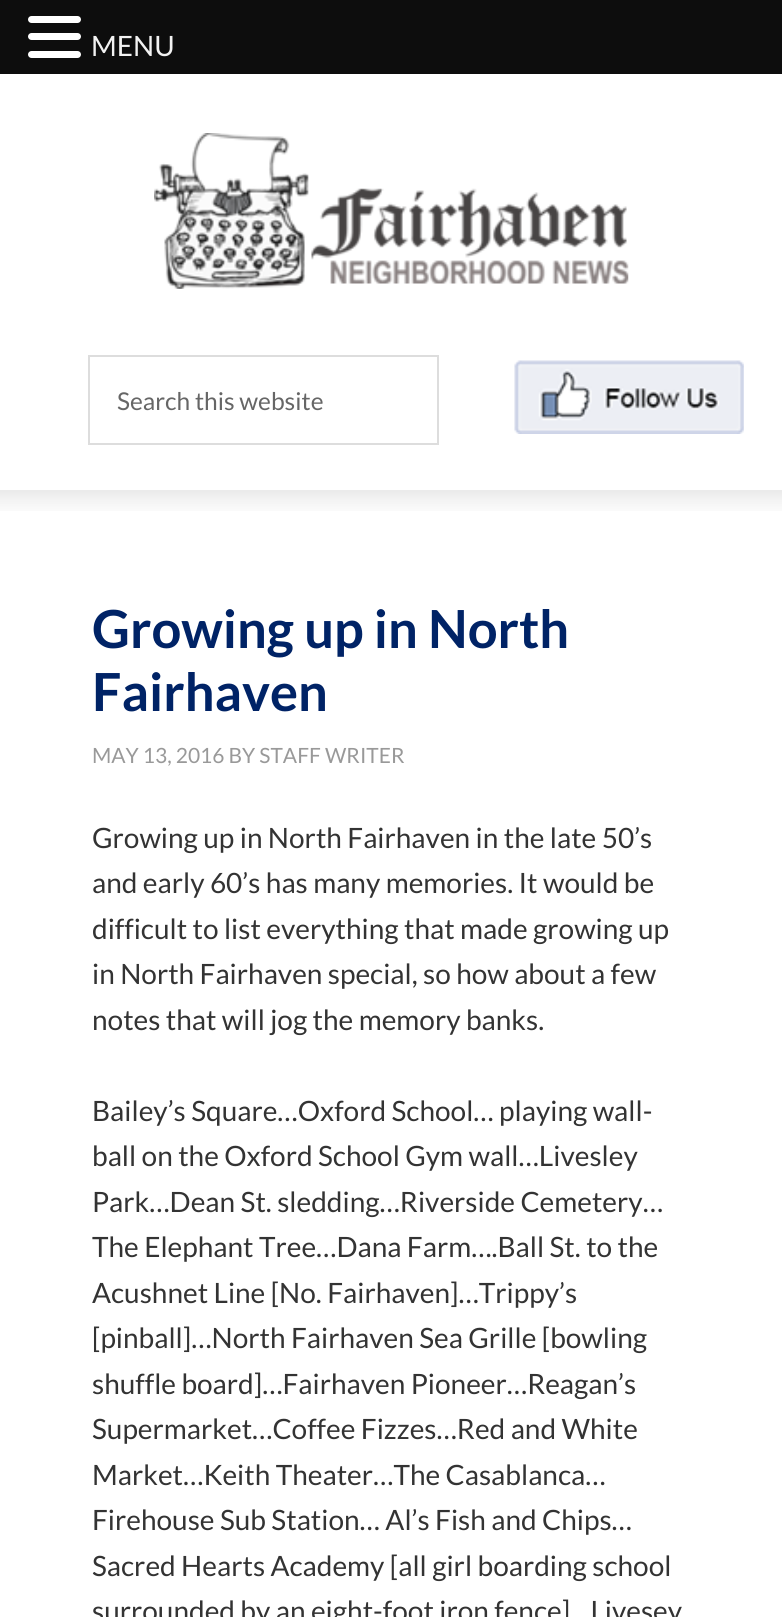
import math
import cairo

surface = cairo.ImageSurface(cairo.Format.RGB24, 782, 1617)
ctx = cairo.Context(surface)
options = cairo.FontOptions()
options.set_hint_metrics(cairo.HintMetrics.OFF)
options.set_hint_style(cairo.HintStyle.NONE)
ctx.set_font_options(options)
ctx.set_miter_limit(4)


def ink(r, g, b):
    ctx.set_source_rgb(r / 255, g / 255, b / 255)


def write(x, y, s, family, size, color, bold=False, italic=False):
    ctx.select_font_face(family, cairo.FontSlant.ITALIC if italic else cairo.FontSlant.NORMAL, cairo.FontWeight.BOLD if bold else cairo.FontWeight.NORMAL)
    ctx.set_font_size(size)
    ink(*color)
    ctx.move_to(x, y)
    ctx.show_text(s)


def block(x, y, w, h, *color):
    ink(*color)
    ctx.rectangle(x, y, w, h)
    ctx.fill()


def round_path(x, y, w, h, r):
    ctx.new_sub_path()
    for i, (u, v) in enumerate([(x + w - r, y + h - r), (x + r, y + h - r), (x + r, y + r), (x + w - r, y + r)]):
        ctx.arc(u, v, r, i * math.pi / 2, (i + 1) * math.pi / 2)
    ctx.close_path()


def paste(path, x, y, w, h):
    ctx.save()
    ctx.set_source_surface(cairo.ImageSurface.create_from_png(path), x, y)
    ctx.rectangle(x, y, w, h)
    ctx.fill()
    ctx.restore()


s1 = dict(family="Lato", size=28, color=(242, 242, 242))
s2 = dict(family="Lato", size=24.5, color=(102, 102, 102))
s3 = dict(family="Lato", size=52.5, color=(0, 35, 102), bold=True)
s4 = dict(family="Lato", size=21, color=(153, 153, 153))
s5 = dict(family="Lato", size=28, color=(51, 51, 51))

ink(255, 255, 255)
ctx.paint()
block(0, 0, 782, 74, 13, 13, 13)
ink(255, 255, 255)
round_path(28, 16, 53, 7, 3.5)
ctx.fill()
round_path(28, 33, 53, 7, 3.5)
ctx.fill()
round_path(28, 51, 53, 7, 3.5)
ctx.fill()
write(91, 56, "MENU", **s1)
paste("pic1.png", 154, 133, 475, 156)
ctx.rectangle(89, 356, 349, 88)
ink(221, 221, 221)
ctx.stroke()
write(117, 410, "Search this website", **s2)
paste("pic2.png", 514, 360, 230, 74)
paste("pic3.png", 0, 490, 782, 21)
write(92, 648, "Growing up in North", **s3)
write(92, 711, "Fairhaven", **s3)
write(92, 763, "MAY 13, 2016 BY STAFF WRITER", **s4)
write(92, 848, "Growing up in North Fairhaven in the late 50’s", **s5)
write(92, 893, "and early 60’s has many memories. It would be", **s5)
write(92, 939, "difficult to list everything that made growing up", **s5)
write(92, 984, "in North Fairhaven special, so how about a few", **s5)
write(92, 1030, "notes that will jog the memory banks.", **s5)
write(92, 1121, "Bailey’s Square…Oxford School… playing wall-", **s5)
write(92, 1166, "ball on the Oxford School Gym wall…Livesley", **s5)
write(92, 1212, "Park…Dean St. sledding…Riverside Cemetery…", **s5)
write(92, 1257, "The Elephant Tree…Dana Farm….Ball St. to the", **s5)
write(92, 1303, "Acushnet Line [No. Fairhaven]…Trippy’s", **s5)
write(92, 1348, "[pinball]…North Fairhaven Sea Grille [bowling", **s5)
write(92, 1394, "shuffle board]…Fairhaven Pioneer…Reagan’s", **s5)
write(92, 1439, "Supermarket…Coffee Fizzes…Red and White", **s5)
write(92, 1485, "Market…Keith Theater…The Casablanca…", **s5)
write(92, 1530, "Firehouse Sub Station… Al’s Fish and Chips…", **s5)
write(92, 1576, "Sacred Hearts Academy [all girl boarding school", **s5)
write(92, 1621, "surrounded by an eight-foot iron fence]…Livesey", **s5)
surface.write_to_png("screenshot.png")
